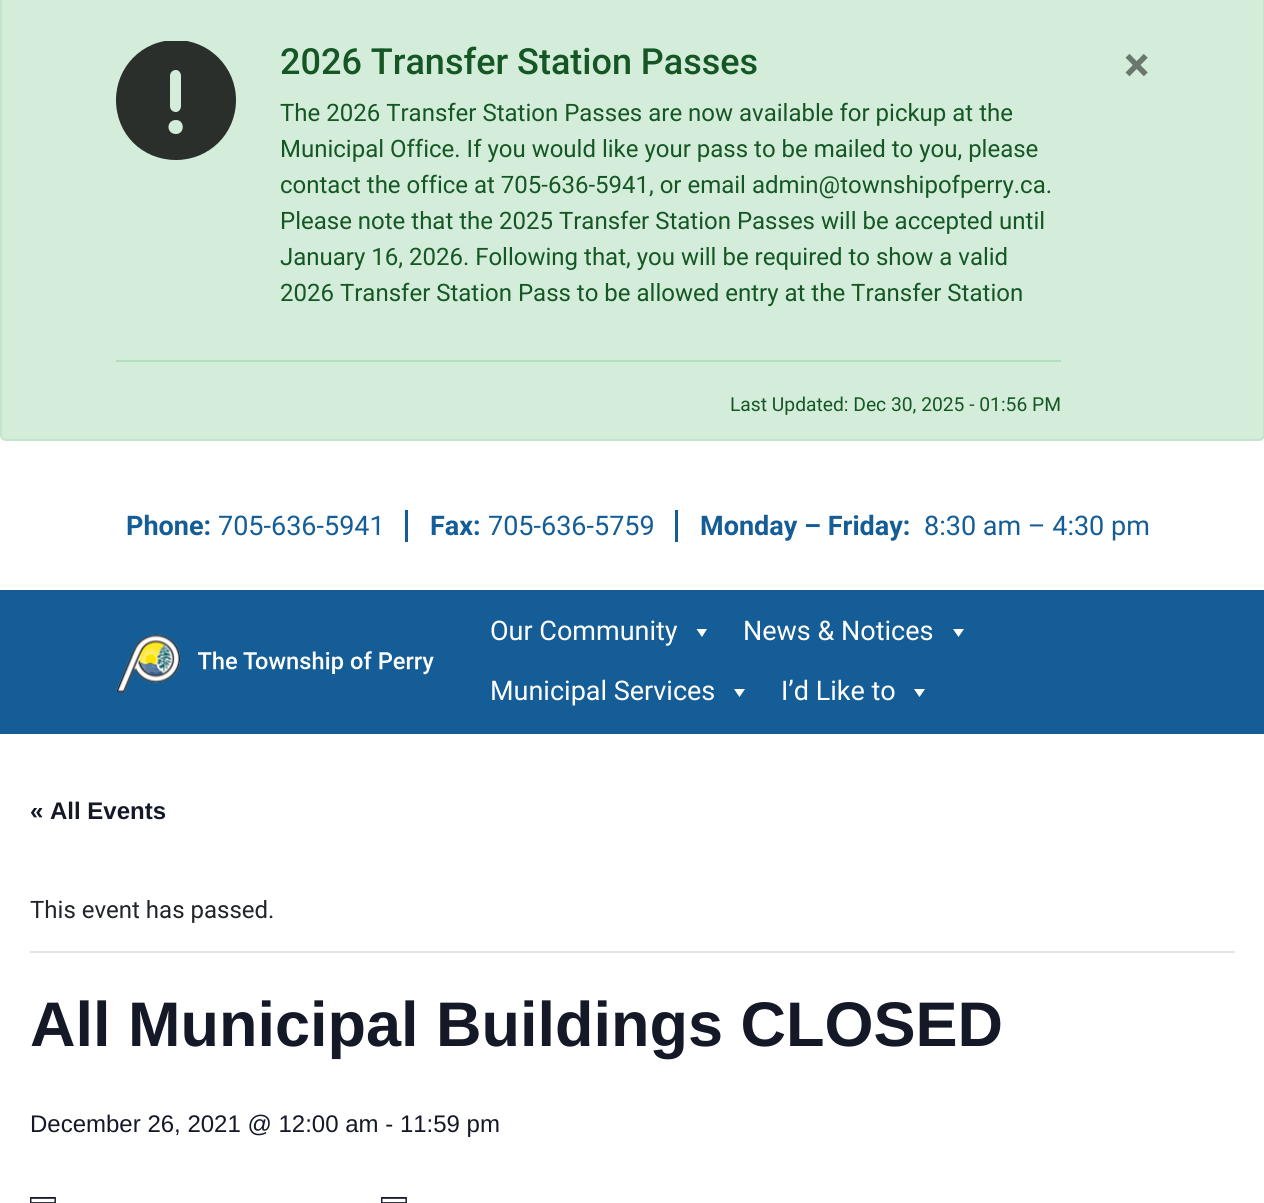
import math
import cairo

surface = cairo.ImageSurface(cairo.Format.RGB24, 1264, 1203)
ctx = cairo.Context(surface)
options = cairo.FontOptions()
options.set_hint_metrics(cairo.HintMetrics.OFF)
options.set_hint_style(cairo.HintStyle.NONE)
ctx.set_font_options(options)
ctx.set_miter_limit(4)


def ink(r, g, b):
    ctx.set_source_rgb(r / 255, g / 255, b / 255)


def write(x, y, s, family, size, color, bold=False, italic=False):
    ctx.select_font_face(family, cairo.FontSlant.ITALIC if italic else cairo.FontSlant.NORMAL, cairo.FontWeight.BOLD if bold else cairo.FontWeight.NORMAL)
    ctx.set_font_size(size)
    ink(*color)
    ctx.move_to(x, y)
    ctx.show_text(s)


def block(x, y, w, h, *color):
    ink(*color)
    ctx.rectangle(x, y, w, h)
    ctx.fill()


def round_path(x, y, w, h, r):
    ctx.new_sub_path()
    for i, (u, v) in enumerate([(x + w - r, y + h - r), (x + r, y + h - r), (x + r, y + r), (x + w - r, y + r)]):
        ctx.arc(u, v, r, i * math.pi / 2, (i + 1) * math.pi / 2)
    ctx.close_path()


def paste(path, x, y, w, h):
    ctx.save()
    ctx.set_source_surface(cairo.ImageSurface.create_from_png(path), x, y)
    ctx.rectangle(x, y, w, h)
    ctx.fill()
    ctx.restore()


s1 = dict(family="Roboto Medium", size=36, color=(21, 87, 36))
s2 = dict(family="Roboto", size=24, color=(21, 87, 36))
s3 = dict(family="Roboto", size=19.25, color=(21, 87, 36))
s4 = dict(family="Roboto", size=48, color=(106, 119, 109), bold=True)
s5 = dict(family="Roboto", size=27, color=(21, 93, 150), bold=True)
s6 = dict(family="Roboto", size=27, color=(21, 93, 150))
s7 = dict(family="Roboto", size=27, color=(255, 255, 255))
s8 = dict(family="Liberation Sans", size=24, color=(20, 24, 39), bold=True)
s9 = dict(family="Roboto", size=24, color=(33, 37, 41))
s10 = dict(family="Liberation Sans", size=63, color=(20, 24, 39), bold=True)
s11 = dict(family="Liberation Sans", size=24, color=(20, 24, 39))

ink(255, 255, 255)
ctx.paint()
ink(212, 237, 218)
round_path(1, -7, 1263, 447, 5)
ctx.fill_preserve()
ink(195, 230, 203)
ctx.stroke()
ctx.save()
ctx.rectangle(116, 41, 120, 120)
ctx.clip()
ink(42, 47, 44)
ctx.new_path()
ctx.move_to(176, 40)
ctx.curve_to(142, 40, 116, 67, 116, 100)
ctx.curve_to(116, 134, 142, 160, 176, 160)
ctx.curve_to(209, 160, 236, 134, 236, 100)
ctx.curve_to(236, 67, 209, 40, 176, 40)
ctx.close_path()
ctx.move_to(170, 76)
ctx.curve_to(170, 73, 172, 70, 176, 70)
ctx.curve_to(179, 70, 181, 73, 181, 76)
ctx.line_to(181, 106)
ctx.curve_to(181, 109, 179, 112, 176, 112)
ctx.curve_to(172, 112, 170, 109, 170, 106)
ctx.close_path()
ctx.move_to(176, 134)
ctx.curve_to(166, 134, 166, 120, 176, 120)
ctx.curve_to(185, 120, 185, 134, 176, 134)
ctx.close_path()
ctx.fill()
ctx.restore()
write(280, 74, "2026 Transfer Station Passes", **s1)
write(280, 121, "The 2026 Transfer Station Passes are now available for pickup at the", **s2)
write(280, 157, "Municipal Office. If you would like your pass to be mailed to you, please", **s2)
write(280, 193, "contact the office at 705-636-5941, or email admin@townshipofperry.ca.", **s2)
write(280, 229, "Please note that the 2025 Transfer Station Passes will be accepted until", **s2)
write(280, 265, "January 16, 2026. Following that, you will be required to show a valid", **s2)
write(280, 301, "2026 Transfer Station Pass to be allowed entry at the Transfer Station", **s2)
block(116, 360, 945, 2, 177, 223, 187)
write(730, 411, "Last Updated: Dec 30, 2025 - 01:56 PM", **s3)
write(1124, 81, "×", **s4)
write(126, 535, "Phone:", **s5)
write(218, 535, "705-636-5941", **s6)
block(405, 510, 3, 32, 21, 93, 150)
write(430, 535, "Fax:", **s5)
write(488, 535, "705-636-5759", **s6)
block(675, 510, 3, 32, 21, 93, 150)
write(700, 535, "Monday – Friday:", **s5)
write(924, 535, "8:30 am – 4:30 pm", **s6)
block(0, 590, 1264, 144, 21, 93, 150)
paste("pic1.png", 116, 634, 318, 59)
write(490, 640, "Our Community", **s7)
ctx.new_path()
ctx.move_to(707, 629)
ctx.line_to(702, 637)
ctx.line_to(696.5, 629)
ctx.close_path()
ctx.fill()
write(743, 640, "News & Notices", **s7)
ctx.new_path()
ctx.move_to(964, 629)
ctx.line_to(958.5, 637)
ctx.line_to(953, 629)
ctx.close_path()
ctx.fill()
write(490, 700, "Municipal Services", **s7)
ctx.new_path()
ctx.move_to(745, 689)
ctx.line_to(739.5, 697)
ctx.line_to(734, 689)
ctx.close_path()
ctx.fill()
write(781, 700, "I’d Like to", **s7)
ctx.new_path()
ctx.move_to(925, 689)
ctx.line_to(919.5, 697)
ctx.line_to(914, 689)
ctx.close_path()
ctx.fill()
write(30, 819, "« All Events", **s8)
block(30, 951, 1205, 2, 228, 228, 228)
write(30, 918, "This event has passed.", **s9)
write(30, 1046, "All Municipal Buildings CLOSED", **s10)
write(30, 1132, "December 26, 2021 @ 12:00 am - 11:59 pm", **s11)
paste("pic2.png", 30, 1197, 26, 6)
paste("pic2.png", 381, 1197, 26, 6)
surface.write_to_png("screenshot.png")
